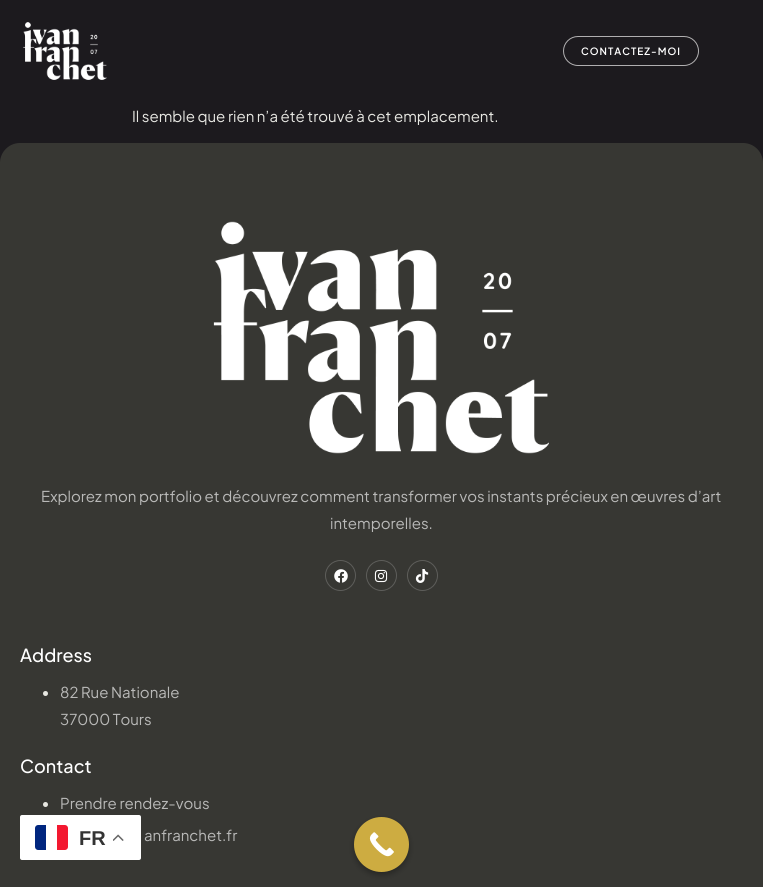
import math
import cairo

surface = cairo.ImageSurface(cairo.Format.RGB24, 763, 887)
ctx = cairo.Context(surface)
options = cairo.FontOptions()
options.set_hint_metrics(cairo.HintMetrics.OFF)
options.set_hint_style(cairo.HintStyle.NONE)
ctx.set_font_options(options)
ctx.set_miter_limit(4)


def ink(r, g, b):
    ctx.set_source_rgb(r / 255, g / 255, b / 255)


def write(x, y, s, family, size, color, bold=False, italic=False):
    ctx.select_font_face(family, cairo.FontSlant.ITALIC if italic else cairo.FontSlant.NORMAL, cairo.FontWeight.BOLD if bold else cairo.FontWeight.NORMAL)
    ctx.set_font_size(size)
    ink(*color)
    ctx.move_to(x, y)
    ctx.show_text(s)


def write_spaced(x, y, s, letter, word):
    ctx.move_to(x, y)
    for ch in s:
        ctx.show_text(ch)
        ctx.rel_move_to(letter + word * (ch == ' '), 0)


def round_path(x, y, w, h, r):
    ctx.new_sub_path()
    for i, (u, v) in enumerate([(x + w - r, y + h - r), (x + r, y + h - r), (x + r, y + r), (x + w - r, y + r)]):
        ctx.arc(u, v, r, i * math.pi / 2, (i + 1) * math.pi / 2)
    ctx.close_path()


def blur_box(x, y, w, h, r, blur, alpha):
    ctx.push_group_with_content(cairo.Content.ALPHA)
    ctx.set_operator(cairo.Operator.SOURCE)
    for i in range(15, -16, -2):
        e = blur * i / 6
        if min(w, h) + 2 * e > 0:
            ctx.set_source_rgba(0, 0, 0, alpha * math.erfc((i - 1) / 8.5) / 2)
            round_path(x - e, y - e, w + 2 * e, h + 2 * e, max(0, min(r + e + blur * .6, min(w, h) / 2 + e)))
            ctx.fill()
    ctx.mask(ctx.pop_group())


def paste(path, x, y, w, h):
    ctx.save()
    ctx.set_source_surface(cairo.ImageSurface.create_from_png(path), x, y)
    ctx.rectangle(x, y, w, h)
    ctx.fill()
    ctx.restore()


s1 = dict(family="Plus Jakarta Sans", size=15, color=(231, 231, 226))
s2 = dict(family="Plus Jakarta Sans", size=15, color=(185, 185, 184))
s3 = dict(family="Plus Jakarta Sans Medium", size=18, color=(255, 255, 255))
s4 = dict(family="Liberation Sans", size=20, color=(51, 51, 51), bold=True)

ink(28, 26, 30)
ctx.paint()
paste("pic1.png", 23, 22, 84, 58)
round_path(563.5, 36.5, 135, 29, 14.5)
ink(176, 175, 176)
ctx.set_line_width(1)
ctx.stroke()
ctx.select_font_face("Plus Jakarta Sans SemiBold")
ctx.set_font_size(10)
ink(255, 255, 255)
write_spaced(581, 55, "CONTACTEZ-MOI", 1, 0)
write(132, 122, "Il semble que rien n’a été trouvé à cet emplacement.", **s1)
ink(55, 55, 51)
round_path(0, 143, 763, 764, 20)
ctx.fill()
paste("pic2.png", 213, 221, 336, 233)
write(41, 502, "Explorez mon portfolio et découvrez comment transformer vos instants précieux en œuvres d’art", **s2)
write(330, 529, "intemporelles.", **s2)
ctx.new_path()
ctx.arc(340.5, 575.5, 15, 0, 2 * math.pi)
ink(93, 93, 90)
ctx.stroke()
paste("pic3.png", 334, 569, 14, 14)
ctx.arc(381.5, 575.5, 15, 0, 2 * math.pi)
ctx.stroke()
paste("pic4.png", 374, 569, 14, 14)
ctx.arc(422.5, 575.5, 15, 0, 2 * math.pi)
ctx.stroke()
paste("pic5.png", 415, 569, 14, 14)
write(20, 662, "Address", **s3)
ink(231, 231, 226)
ctx.new_path()
ctx.arc(45.5, 693.5, 2.5, 0, 2 * math.pi)
ctx.fill()
write(60, 698, "82 Rue Nationale", **s2)
write(60, 725, "37000 Tours", **s2)
write(20, 773, "Contact", **s3)
ink(231, 231, 226)
ctx.new_path()
ctx.arc(45.5, 804.5, 2.5, 0, 2 * math.pi)
ctx.fill()
write(60, 809, "Prendre rendez-vous", **s2)
write(144, 841, "anfranchet.fr", **s2)
ink(255, 255, 255)
round_path(20, 815, 121, 45, 2)
ctx.fill()
ink(0, 38, 127)
ctx.new_path()
ctx.move_to(38, 825)
ctx.line_to(46, 825)
ctx.line_to(46, 850)
ctx.line_to(38, 850)
ctx.curve_to(36.5, 850, 35, 848.5, 35, 847)
ctx.line_to(35, 828)
ctx.curve_to(35, 826.5, 36.5, 825, 38, 825)
ctx.close_path()
ctx.fill()
ink(243, 24, 48)
ctx.new_path()
ctx.move_to(57, 825)
ctx.line_to(65, 825)
ctx.curve_to(66.5, 825, 68, 826.5, 68, 828)
ctx.line_to(68, 847)
ctx.curve_to(68, 848.5, 66.5, 850, 65, 850)
ctx.line_to(57, 850)
ctx.close_path()
ctx.fill()
write(79, 845, "FR", **s4)
paste("pic6.png", 113, 834, 11, 7)
ink(0, 0, 0)
blur_box(354, 820, 55, 55, 27.5, 3, 0.3)
ink(205, 172, 65)
ctx.arc(381.5, 844.5, 27.5, 0, 2 * math.pi)
ctx.fill()
paste("pic7.png", 369, 832, 25, 25)
surface.write_to_png("screenshot.png")
